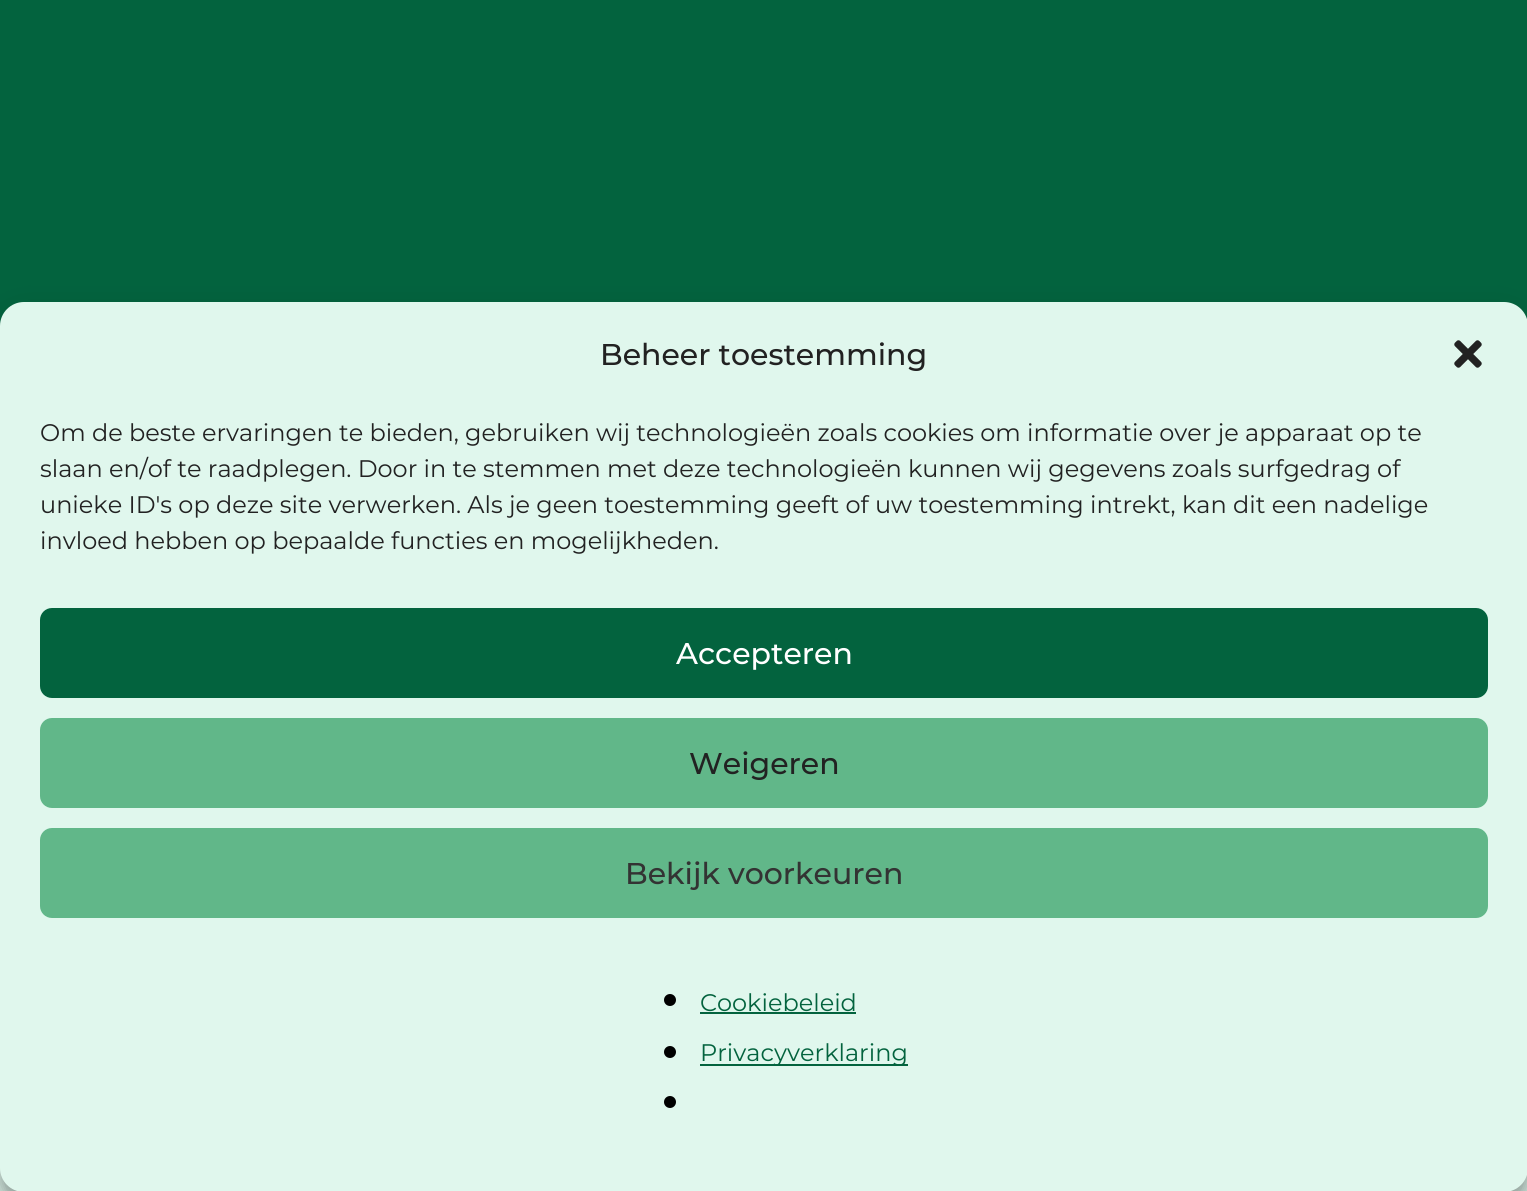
import math
import cairo

surface = cairo.ImageSurface(cairo.Format.RGB24, 1527, 1191)
ctx = cairo.Context(surface)
options = cairo.FontOptions()
options.set_hint_metrics(cairo.HintMetrics.OFF)
options.set_hint_style(cairo.HintStyle.NONE)
ctx.set_font_options(options)
ctx.set_miter_limit(4)


def ink(r, g, b):
    ctx.set_source_rgb(r / 255, g / 255, b / 255)


def write(x, y, s, family, size, color, bold=False, italic=False):
    ctx.select_font_face(family, cairo.FontSlant.ITALIC if italic else cairo.FontSlant.NORMAL, cairo.FontWeight.BOLD if bold else cairo.FontWeight.NORMAL)
    ctx.set_font_size(size)
    ink(*color)
    ctx.move_to(x, y)
    ctx.show_text(s)


def block(x, y, w, h, *color):
    ink(*color)
    ctx.rectangle(x, y, w, h)
    ctx.fill()


def round_path(x, y, w, h, r):
    ctx.new_sub_path()
    for i, (u, v) in enumerate([(x + w - r, y + h - r), (x + r, y + h - r), (x + r, y + r), (x + w - r, y + r)]):
        ctx.arc(u, v, r, i * math.pi / 2, (i + 1) * math.pi / 2)
    ctx.close_path()


def blur_box(x, y, w, h, r, blur, alpha):
    ctx.push_group_with_content(cairo.Content.ALPHA)
    ctx.set_operator(cairo.Operator.SOURCE)
    for i in range(15, -16, -2):
        e = blur * i / 6
        if min(w, h) + 2 * e > 0:
            ctx.set_source_rgba(0, 0, 0, alpha * math.erfc((i - 1) / 8.5) / 2)
            round_path(x - e, y - e, w + 2 * e, h + 2 * e, max(0, min(r + e + blur * .6, min(w, h) / 2 + e)))
            ctx.fill()
    ctx.mask(ctx.pop_group())


def paste(path, x, y, w, h):
    ctx.save()
    ctx.set_source_surface(cairo.ImageSurface.create_from_png(path), x, y)
    ctx.rectangle(x, y, w, h)
    ctx.fill()
    ctx.restore()


s1 = dict(family="Montserrat Medium", size=30, color=(34, 34, 34))
s2 = dict(family="Montserrat", size=24, color=(34, 34, 34))
s3 = dict(family="Montserrat Medium", size=30, color=(255, 255, 255))
s4 = dict(family="Montserrat Medium", size=30, color=(51, 51, 51))
s5 = dict(family="Montserrat", size=24, color=(3, 99, 62))

ink(224, 247, 237)
ctx.paint()
block(0, 0, 1527, 326, 3, 99, 62)
ink(0, 0, 0)
blur_box(0, 314, 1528, 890, 24, 6, 0.23)
blur_box(0, 322, 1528, 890, 24, 20, 0.19)
ink(224, 247, 237)
round_path(0, 302, 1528, 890, 24)
ctx.fill()
write(600, 365, "Beheer toestemming", **s1)
paste("pic1.png", 1454, 340, 28, 28)
write(40, 441, "Om de beste ervaringen te bieden, gebruiken wij technologieën zoals cookies om informatie over je apparaat op te", **s2)
write(40, 477, "slaan en/of te raadplegen. Door in te stemmen met deze technologieën kunnen wij gegevens zoals surfgedrag of", **s2)
write(40, 513, "unieke ID's op deze site verwerken. Als je geen toestemming geeft of uw toestemming intrekt, kan dit een nadelige", **s2)
write(40, 549, "invloed hebben op bepaalde functies en mogelijkheden.", **s2)
ink(3, 99, 62)
round_path(41, 609, 1446, 88, 11)
ctx.fill_preserve()
ctx.stroke()
write(676, 664, "Accepteren", **s3)
ink(97, 183, 137)
round_path(41, 719, 1446, 88, 11)
ctx.fill_preserve()
ctx.stroke()
write(689, 774, "Weigeren", **s1)
ink(97, 183, 137)
round_path(41, 829, 1446, 88, 11)
ctx.fill_preserve()
ctx.stroke()
write(625, 884, "Bekijk voorkeuren", **s4)
ink(0, 0, 0)
ctx.new_path()
ctx.arc(670, 1000, 6, 0, 2 * math.pi)
ctx.fill()
write(700, 1011, "Cookiebeleid", **s5)
block(700, 1012, 156, 2, 3, 99, 62)
ink(0, 0, 0)
ctx.new_path()
ctx.arc(670, 1052, 6, 0, 2 * math.pi)
ctx.fill()
block(700, 1064, 208, 2, 3, 99, 62)
write(700, 1061, "Privacyverklaring", **s5)
ink(0, 0, 0)
ctx.new_path()
ctx.arc(670, 1102, 6, 0, 2 * math.pi)
ctx.fill()
surface.write_to_png("screenshot.png")
